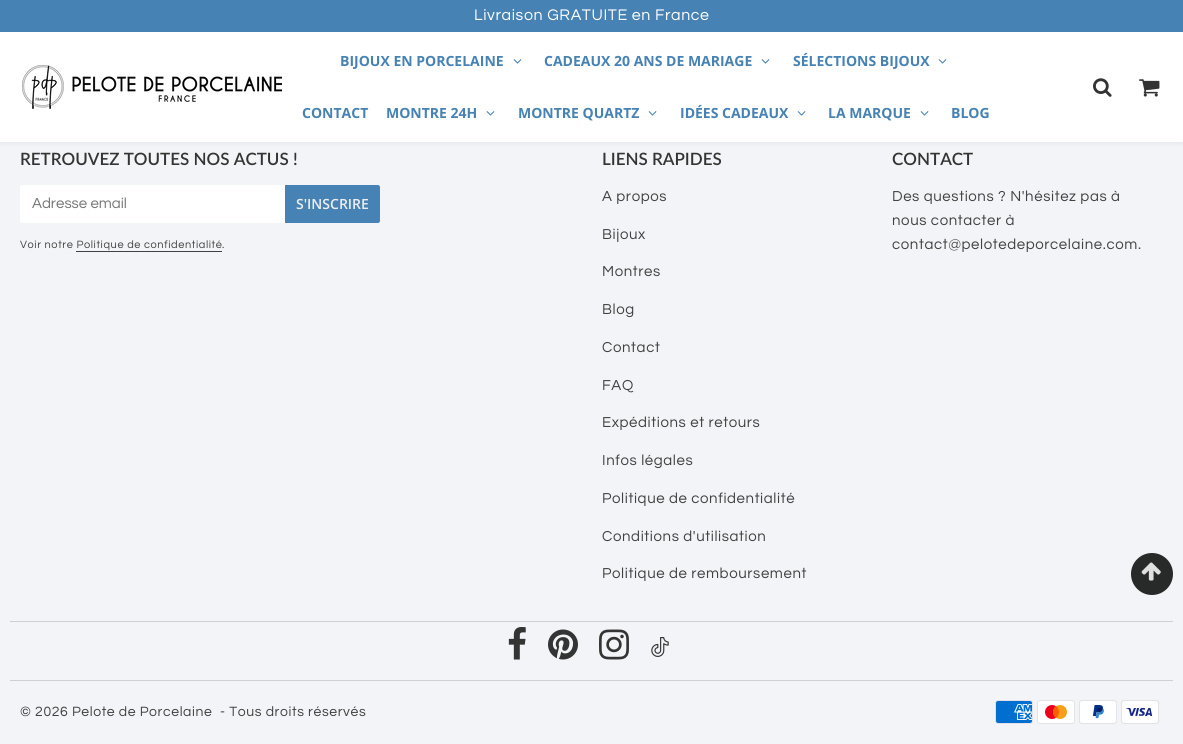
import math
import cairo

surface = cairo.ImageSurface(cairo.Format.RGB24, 1183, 744)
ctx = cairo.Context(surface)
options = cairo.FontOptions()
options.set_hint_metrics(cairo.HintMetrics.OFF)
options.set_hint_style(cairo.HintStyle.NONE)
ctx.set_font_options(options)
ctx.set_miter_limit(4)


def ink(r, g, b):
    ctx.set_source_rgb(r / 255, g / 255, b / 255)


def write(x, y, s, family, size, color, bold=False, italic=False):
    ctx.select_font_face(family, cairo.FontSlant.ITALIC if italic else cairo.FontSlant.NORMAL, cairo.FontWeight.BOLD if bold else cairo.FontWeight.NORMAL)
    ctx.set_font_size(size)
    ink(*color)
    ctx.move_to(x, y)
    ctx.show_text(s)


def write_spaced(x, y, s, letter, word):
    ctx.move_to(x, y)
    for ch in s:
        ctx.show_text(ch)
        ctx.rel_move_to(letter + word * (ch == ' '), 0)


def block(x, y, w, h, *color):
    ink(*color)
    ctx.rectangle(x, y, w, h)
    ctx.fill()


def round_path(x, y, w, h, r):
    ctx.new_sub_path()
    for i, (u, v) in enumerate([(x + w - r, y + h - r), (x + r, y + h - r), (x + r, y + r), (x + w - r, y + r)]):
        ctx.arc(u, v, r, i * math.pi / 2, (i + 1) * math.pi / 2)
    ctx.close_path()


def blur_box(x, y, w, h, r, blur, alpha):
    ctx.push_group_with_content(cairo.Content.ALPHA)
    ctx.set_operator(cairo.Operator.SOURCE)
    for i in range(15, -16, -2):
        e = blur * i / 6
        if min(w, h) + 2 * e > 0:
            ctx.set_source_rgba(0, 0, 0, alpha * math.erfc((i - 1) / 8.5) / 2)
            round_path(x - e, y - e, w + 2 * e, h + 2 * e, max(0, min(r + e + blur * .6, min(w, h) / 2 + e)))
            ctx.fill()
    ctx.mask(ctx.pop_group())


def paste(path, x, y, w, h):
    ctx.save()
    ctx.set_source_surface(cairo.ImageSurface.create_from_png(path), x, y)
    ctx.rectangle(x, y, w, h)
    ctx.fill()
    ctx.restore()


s1 = dict(family="Open Sans", size=14, color=(70, 130, 180), bold=True)
s2 = dict(family="Lato SemiBold", size=17, color=(52, 52, 52))
s3 = dict(family="Questrial", size=15, color=(117, 117, 117))
s4 = dict(family="Open Sans SemiBold", size=14, color=(238, 238, 238))

ink(242, 244, 247)
ctx.paint()
ink(0, 0, 0)
blur_box(0, 2, 1183, 142, 0, 2, 0.05)
block(0, 32, 1183, 110, 255, 255, 255)
block(0, 0, 1183, 32, 70, 130, 180)
ctx.select_font_face("Questrial")
ctx.set_font_size(16)
ink(255, 255, 255)
write_spaced(474, 20, "Livraison GRATUITE en France", 0.6, 0)
paste("pic1.png", 22, 65, 260, 44)
write(340, 66, "BIJOUX EN PORCELAINE", **s1)
paste("pic2.png", 513, 59, 9, 5)
write(544, 66, "CADEAUX 20 ANS DE MARIAGE", **s1)
paste("pic2.png", 761, 59, 9, 5)
write(793, 66, "SÉLECTIONS BIJOUX", **s1)
paste("pic2.png", 938, 59, 9, 5)
write(302, 118, "CONTACT", **s1)
write(386, 118, "MONTRE 24H", **s1)
paste("pic2.png", 486, 111, 9, 5)
write(518, 118, "MONTRE QUARTZ", **s1)
paste("pic2.png", 648, 111, 9, 5)
write(680, 118, "IDÉES CADEAUX", **s1)
paste("pic2.png", 797, 111, 9, 5)
write(828, 118, "LA MARQUE", **s1)
paste("pic2.png", 920, 111, 9, 5)
write(951, 118, "BLOG", **s1)
paste("pic3.png", 1093, 78, 19, 19)
paste("pic4.png", 1139, 79, 21, 18)
write(20, 165, "RETROUVEZ TOUTES NOS ACTUS !", **s2)
ink(255, 255, 255)
ctx.new_path()
ctx.move_to(22, 185)
ctx.line_to(285, 185)
ctx.line_to(285, 223)
ctx.line_to(22, 223)
ctx.curve_to(21, 223, 20, 222, 20, 221)
ctx.line_to(20, 187)
ctx.curve_to(20, 186, 21, 185, 22, 185)
ctx.close_path()
ctx.fill()
write(32, 208, "Adresse email", **s3)
ink(70, 130, 180)
ctx.new_path()
ctx.move_to(285, 185)
ctx.line_to(378, 185)
ctx.curve_to(379, 185, 380, 186, 380, 187)
ctx.line_to(380, 221)
ctx.curve_to(380, 222, 379, 223, 378, 223)
ctx.line_to(285, 223)
ctx.close_path()
ctx.fill()
write(296, 209, "S'INSCRIRE", **s4)
ctx.select_font_face("Questrial")
ctx.set_font_size(11)
ink(65, 65, 65)
write_spaced(20, 248, "Voir notre Politique de confidentialité", 0.6, 0)
write_spaced(222, 248, ".", 0.6, 0)
block(76, 251, 146, 1, 65, 65, 65)
write(602, 165, "LIENS RAPIDES", **s2)
ctx.select_font_face("Questrial")
ctx.set_font_size(15)
ink(65, 65, 65)
write_spaced(602, 201, "A propos", 0.6, 0)
write_spaced(602, 239, "Bijoux", 0.6, 0)
write_spaced(602, 276, "Montres", 0.6, 0)
write_spaced(602, 314, "Blog", 0.6, 0)
write_spaced(602, 352, "Contact", 0.6, 0)
write_spaced(602, 390, "FAQ", 0.6, 0)
write_spaced(602, 427, "Expéditions et retours", 0.6, 0)
write_spaced(602, 465, "Infos légales", 0.6, 0)
write_spaced(602, 503, "Politique de confidentialité", 0.6, 0)
write_spaced(602, 541, "Conditions d'utilisation", 0.6, 0)
write_spaced(602, 578, "Politique de remboursement", 0.6, 0)
write(892, 165, "CONTACT", **s2)
ctx.select_font_face("Questrial")
ctx.set_font_size(15)
ink(65, 65, 65)
write_spaced(892, 201, "Des questions ? N'hésitez pas à", 0.6, 0)
write_spaced(892, 225, "nous contacter à", 0.6, 0)
write_spaced(892, 249, "contact@pelotedeporcelaine.com", 0.6, 0)
write_spaced(1138, 249, ".", 0.6, 0)
block(10, 621, 1163, 1, 207, 208, 211)
paste("pic5.png", 508, 627, 18, 33)
paste("pic6.png", 548, 629, 30, 31)
paste("pic7.png", 599, 629, 30, 31)
paste("pic8.png", 651, 637, 18, 20)
block(10, 680, 1163, 1, 207, 208, 211)
ctx.set_font_size(14)
ink(65, 65, 65)
write_spaced(20, 716, "© 2026 Pelote de Porcelaine", 0.6, 0)
write_spaced(220, 716, "- Tous droits réservés", 0.6, 0)
paste("pic9.png", 995, 700, 38, 24)
paste("pic10.png", 1037, 700, 38, 24)
paste("pic11.png", 1079, 700, 38, 24)
paste("pic12.png", 1121, 700, 38, 24)
ink(40, 41, 41)
ctx.arc(1152, 574, 21, 0, 2 * math.pi)
ctx.fill()
paste("pic13.png", 1141, 562, 20, 19)
surface.write_to_png("screenshot.png")
